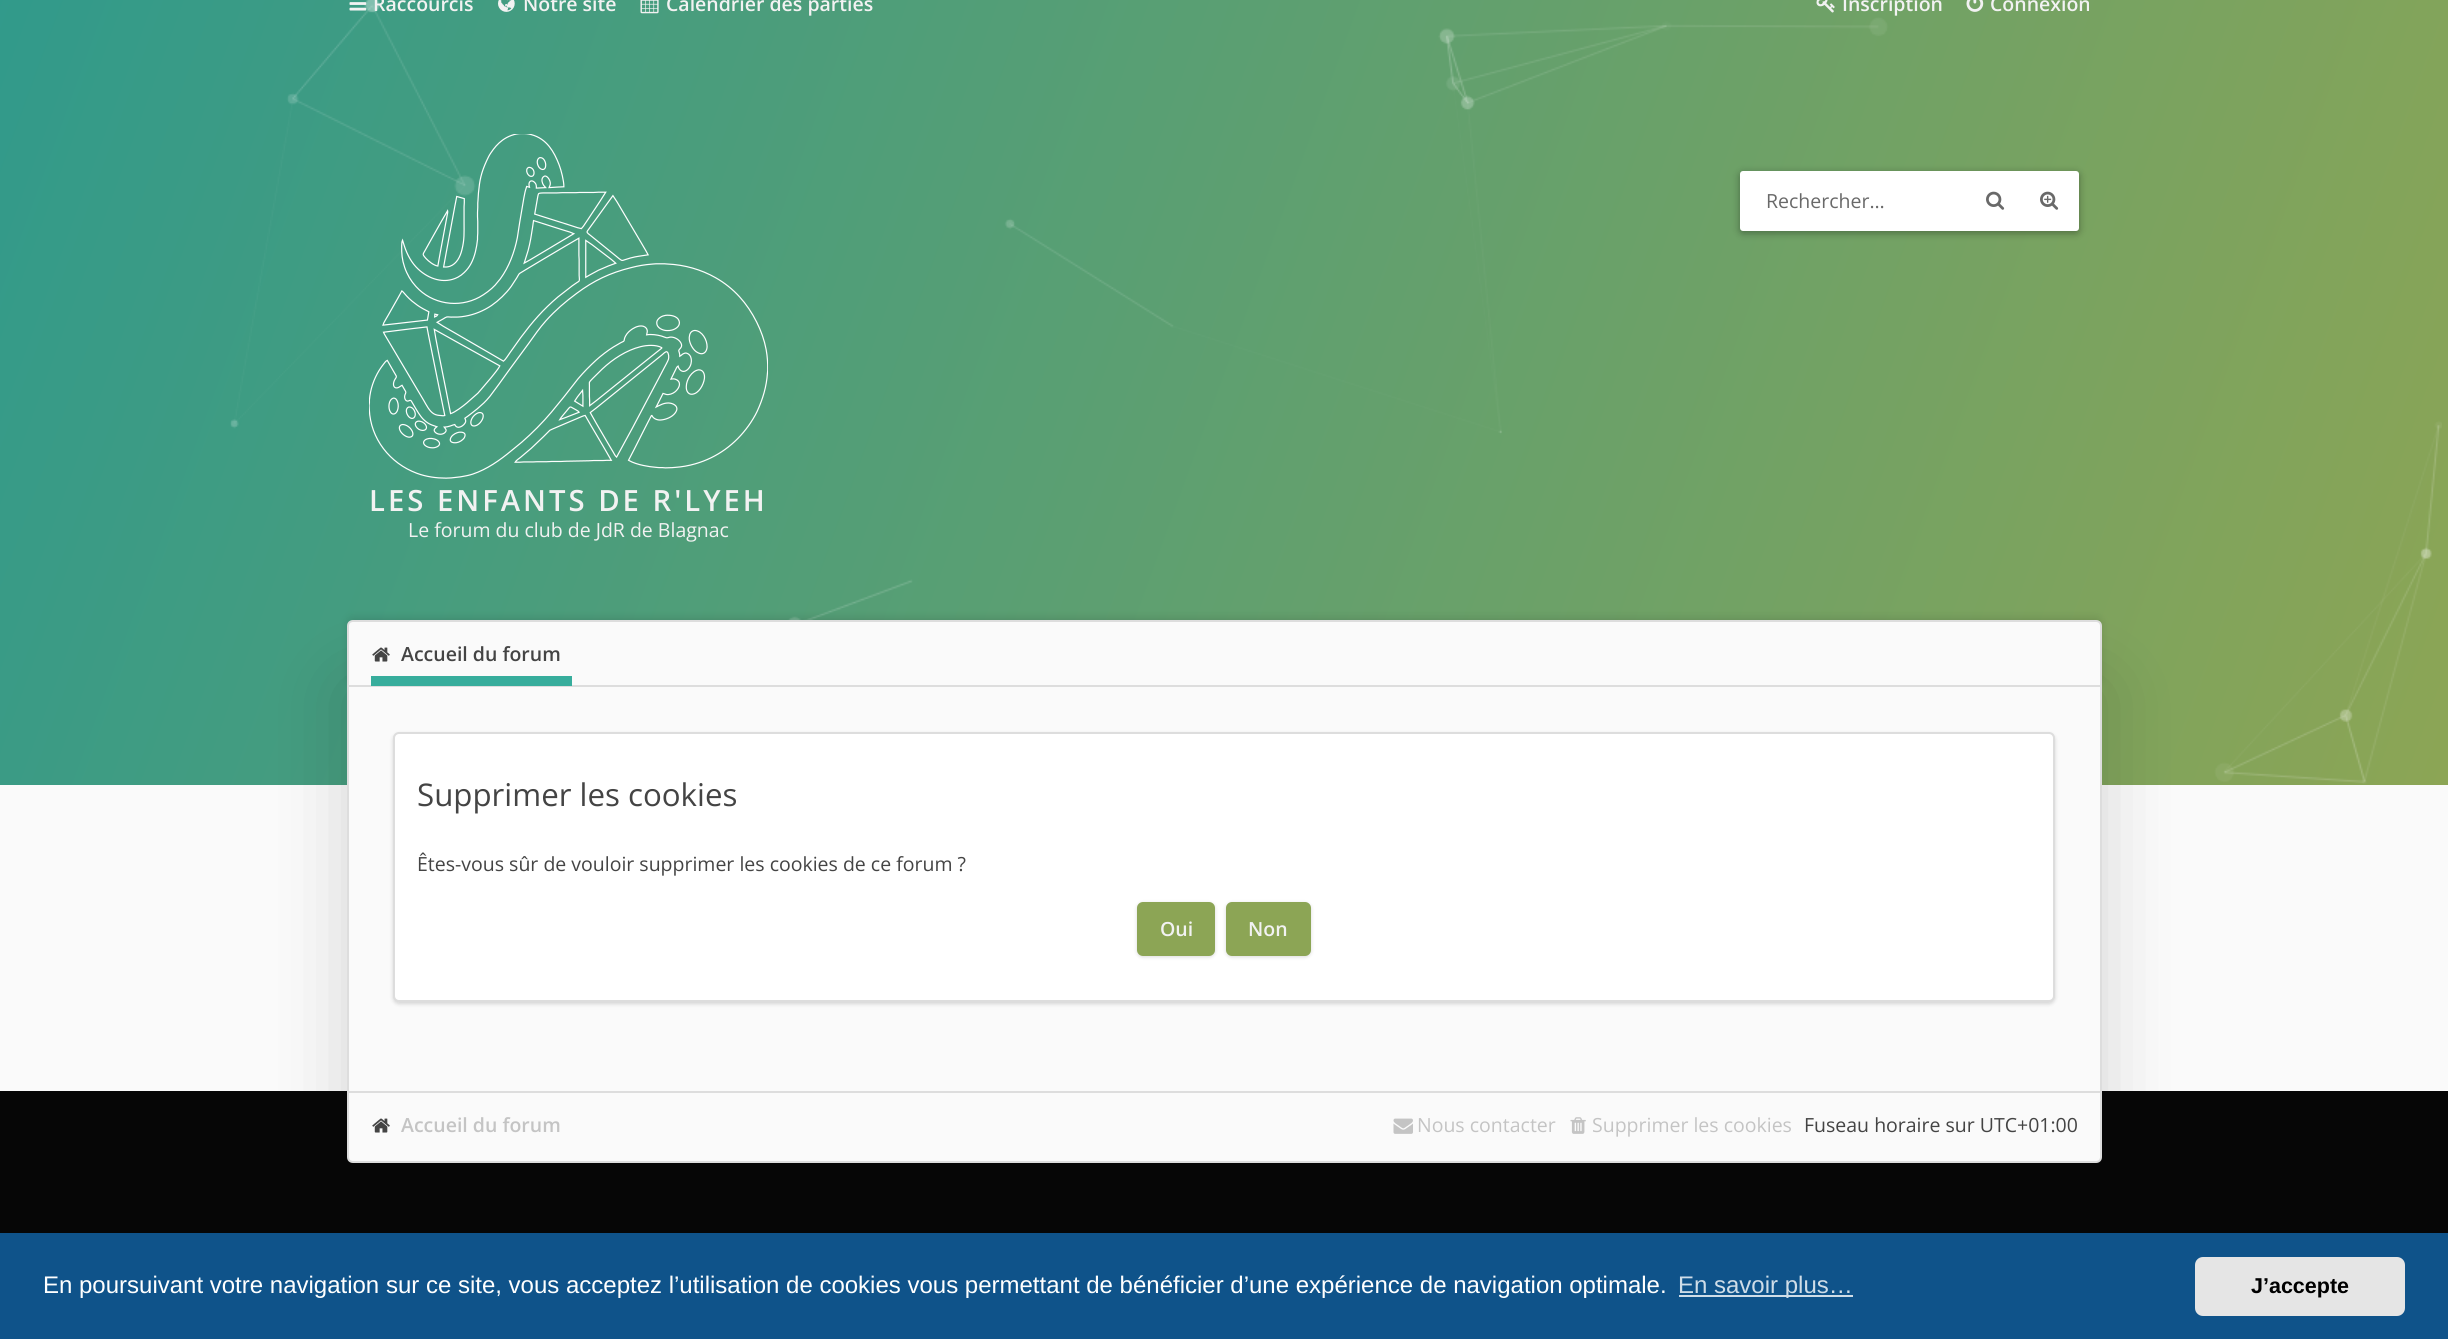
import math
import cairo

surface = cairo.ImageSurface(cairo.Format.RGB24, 2448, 1339)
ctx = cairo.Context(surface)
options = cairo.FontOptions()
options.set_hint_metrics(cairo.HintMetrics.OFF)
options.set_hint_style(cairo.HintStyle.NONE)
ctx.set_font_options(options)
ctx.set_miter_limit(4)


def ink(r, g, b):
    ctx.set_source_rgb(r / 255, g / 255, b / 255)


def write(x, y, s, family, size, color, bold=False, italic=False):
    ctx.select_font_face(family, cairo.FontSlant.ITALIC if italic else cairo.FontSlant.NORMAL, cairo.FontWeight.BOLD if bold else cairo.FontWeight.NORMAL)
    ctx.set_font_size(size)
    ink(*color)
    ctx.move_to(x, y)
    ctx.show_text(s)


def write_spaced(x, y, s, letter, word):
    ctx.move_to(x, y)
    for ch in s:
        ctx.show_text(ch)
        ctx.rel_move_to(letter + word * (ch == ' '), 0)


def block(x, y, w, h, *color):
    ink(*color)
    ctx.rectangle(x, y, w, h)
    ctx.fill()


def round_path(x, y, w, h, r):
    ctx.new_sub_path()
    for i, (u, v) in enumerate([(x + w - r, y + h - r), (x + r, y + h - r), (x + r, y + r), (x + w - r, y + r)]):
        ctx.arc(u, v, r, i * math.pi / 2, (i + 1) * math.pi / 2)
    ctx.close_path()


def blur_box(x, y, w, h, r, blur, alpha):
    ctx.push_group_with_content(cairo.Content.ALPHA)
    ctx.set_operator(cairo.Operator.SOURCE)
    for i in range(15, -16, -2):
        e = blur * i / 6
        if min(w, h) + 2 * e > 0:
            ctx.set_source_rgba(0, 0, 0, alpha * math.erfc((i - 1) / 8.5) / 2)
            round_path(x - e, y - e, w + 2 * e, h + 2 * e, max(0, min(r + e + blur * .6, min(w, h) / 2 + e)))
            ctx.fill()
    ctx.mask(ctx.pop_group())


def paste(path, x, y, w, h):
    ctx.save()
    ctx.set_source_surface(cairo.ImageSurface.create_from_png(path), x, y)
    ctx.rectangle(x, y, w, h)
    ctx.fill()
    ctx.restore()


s1 = dict(family="Open Sans SemiBold", size=19.5, color=(242, 242, 242))
s2 = dict(family="Open Sans", size=19.5, color=(105, 105, 105))
s3 = dict(family="Open Sans", size=19.5, color=(242, 242, 242))
s4 = dict(family="Open Sans SemiBold", size=19.5, color=(68, 68, 68))
s5 = dict(family="Open Sans", size=31.25, color=(68, 68, 68))
s6 = dict(family="Open Sans", size=19.5, color=(68, 68, 68))
s7 = dict(family="Open Sans SemiBold", size=19.5, color=(196, 196, 196))
s8 = dict(family="Open Sans", size=19.5, color=(196, 196, 196))
s9 = dict(family="Liberation Sans", size=24, color=(255, 255, 255))
s10 = dict(family="Liberation Sans", size=24, color=(207, 221, 232))
s11 = dict(family="Liberation Sans", size=21.5, color=(0, 0, 0), bold=True)

ink(250, 250, 250)
ctx.paint()
gradient = cairo.LinearGradient(11, -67, 2437, 816)
gradient.add_color_stop_rgba(0, 0.192, 0.604, 0.545, 1)
gradient.add_color_stop_rgba(1, 0.549, 0.647, 0.333, 1)
ctx.set_source(gradient)
ctx.rectangle(0, 0, 2448, 785)
ctx.fill()
ink(0, 0, 0)
blur_box(347, 687, 1755, 525, 0, 37.5, 0.15)
paste("pic6.png", 230, 0, 2212, 784)
paste("pic1.png", 349, 2, 18, 9)
write(373, 11, "Raccourcis", **s1)
paste("pic2.png", 498, 0, 17, 12)
write(523, 11, "Notre site", **s1)
paste("pic3.png", 640, 0, 19, 14)
write(666, 11, "Calendrier des parties", **s1)
paste("pic4.png", 1816, 0, 19, 13)
write(1842, 11, "Inscription", **s1)
paste("pic5.png", 1966, 0, 18, 12)
write(1990, 11, "Connexion", **s1)
ink(0, 0, 0)
blur_box(1740, 173, 339, 60, 3, 4, 0.35)
ink(255, 255, 255)
round_path(1740, 171, 339, 60, 3)
ctx.fill()
write(1766, 208, "Rechercher…", **s2)
paste("pic7.png", 1986, 191, 19, 19)
paste("pic8.png", 2040, 191, 19, 19)
paste("pic9.png", 369, 134, 399, 345)
ctx.select_font_face("Open Sans SemiBold")
ctx.set_font_size(29.25)
ink(242, 242, 242)
write_spaced(369, 511, "LES ENFANTS DE R'LYEH", 3, 0)
write(408, 537, "Le forum du club de JdR de Blagnac", **s3)
ink(0, 0, 0)
blur_box(347, 617, 1755, 67, 6, 4, 0.1)
ink(250, 250, 250)
ctx.new_path()
ctx.move_to(353, 621)
ctx.line_to(2096, 621)
ctx.curve_to(2099, 621, 2101, 623, 2101, 626)
ctx.line_to(2101, 686)
ctx.line_to(348, 686)
ctx.line_to(348, 626)
ctx.curve_to(348, 623, 350, 621, 353, 621)
ctx.close_path()
ctx.fill_preserve()
ink(221, 221, 221)
ctx.stroke()
paste("pic10.png", 372, 647, 18, 15)
ink(55, 173, 156)
ctx.new_path()
ctx.move_to(371, 676)
ctx.line_to(371, 686)
ctx.line_to(572, 686)
ctx.line_to(572, 642)
ctx.line_to(572, 676)
ctx.close_path()
ctx.fill()
write(401, 661, "Accueil du forum", **s4)
block(349, 687, 1751, 404, 250, 250, 250)
block(2100, 687, 2, 404, 221, 221, 221)
block(347, 687, 2, 404, 221, 221, 221)
ink(0, 0, 0)
blur_box(393, 734, 1662, 270, 6, 2, 0.15)
ink(255, 255, 255)
round_path(394, 733, 1660, 268, 5)
ctx.fill_preserve()
ink(221, 221, 221)
ctx.stroke()
write(417, 806, "Supprimer les cookies", **s5)
write(417, 871, "Êtes-vous sûr de vouloir supprimer les cookies de ce forum ?", **s6)
ink(0, 0, 0)
blur_box(1137, 903, 78, 54, 6, 2, 0.15)
ink(140, 165, 85)
round_path(1137, 902, 78, 54, 6)
ctx.fill()
write(1160, 936, "Oui", **s1)
ink(0, 0, 0)
blur_box(1226, 903, 85, 54, 6, 2, 0.15)
ink(140, 165, 85)
round_path(1226, 902, 85, 54, 6)
ctx.fill()
write(1248, 936, "Non", **s1)
block(0, 1091, 2448, 142, 6, 6, 6)
ink(250, 250, 250)
ctx.new_path()
ctx.move_to(348, 1092)
ctx.line_to(2101, 1092)
ctx.line_to(2101, 1157)
ctx.curve_to(2101, 1160, 2099, 1162, 2096, 1162)
ctx.line_to(353, 1162)
ctx.curve_to(350, 1162, 348, 1160, 348, 1157)
ctx.close_path()
ctx.fill_preserve()
ink(221, 221, 221)
ctx.stroke()
paste("pic10.png", 372, 1118, 18, 15)
write(401, 1132, "Accueil du forum", **s7)
paste("pic11.png", 1393, 1118, 20, 16)
write(1417, 1132, "Nous contacter", **s8)
paste("pic12.png", 1570, 1117, 16, 17)
write(1592, 1132, "Supprimer les cookies", **s8)
write(1804, 1132, "Fuseau horaire sur UTC+01:00", **s6)
block(0, 1233, 2448, 106, 15, 83, 138)
write(43, 1293, "En poursuivant votre navigation sur ce site, vous acceptez l’utilisation de cookies vous permettant de bénéficier d’une expérience de navigation optimale.", **s9)
block(1679, 1295, 174, 2, 207, 221, 232)
write(1678, 1293, "En savoir plus…", **s10)
ink(229, 229, 229)
round_path(2195, 1257, 210, 59, 8)
ctx.fill()
write(2251, 1293, "J’accepte", **s11)
surface.write_to_png("screenshot.png")
